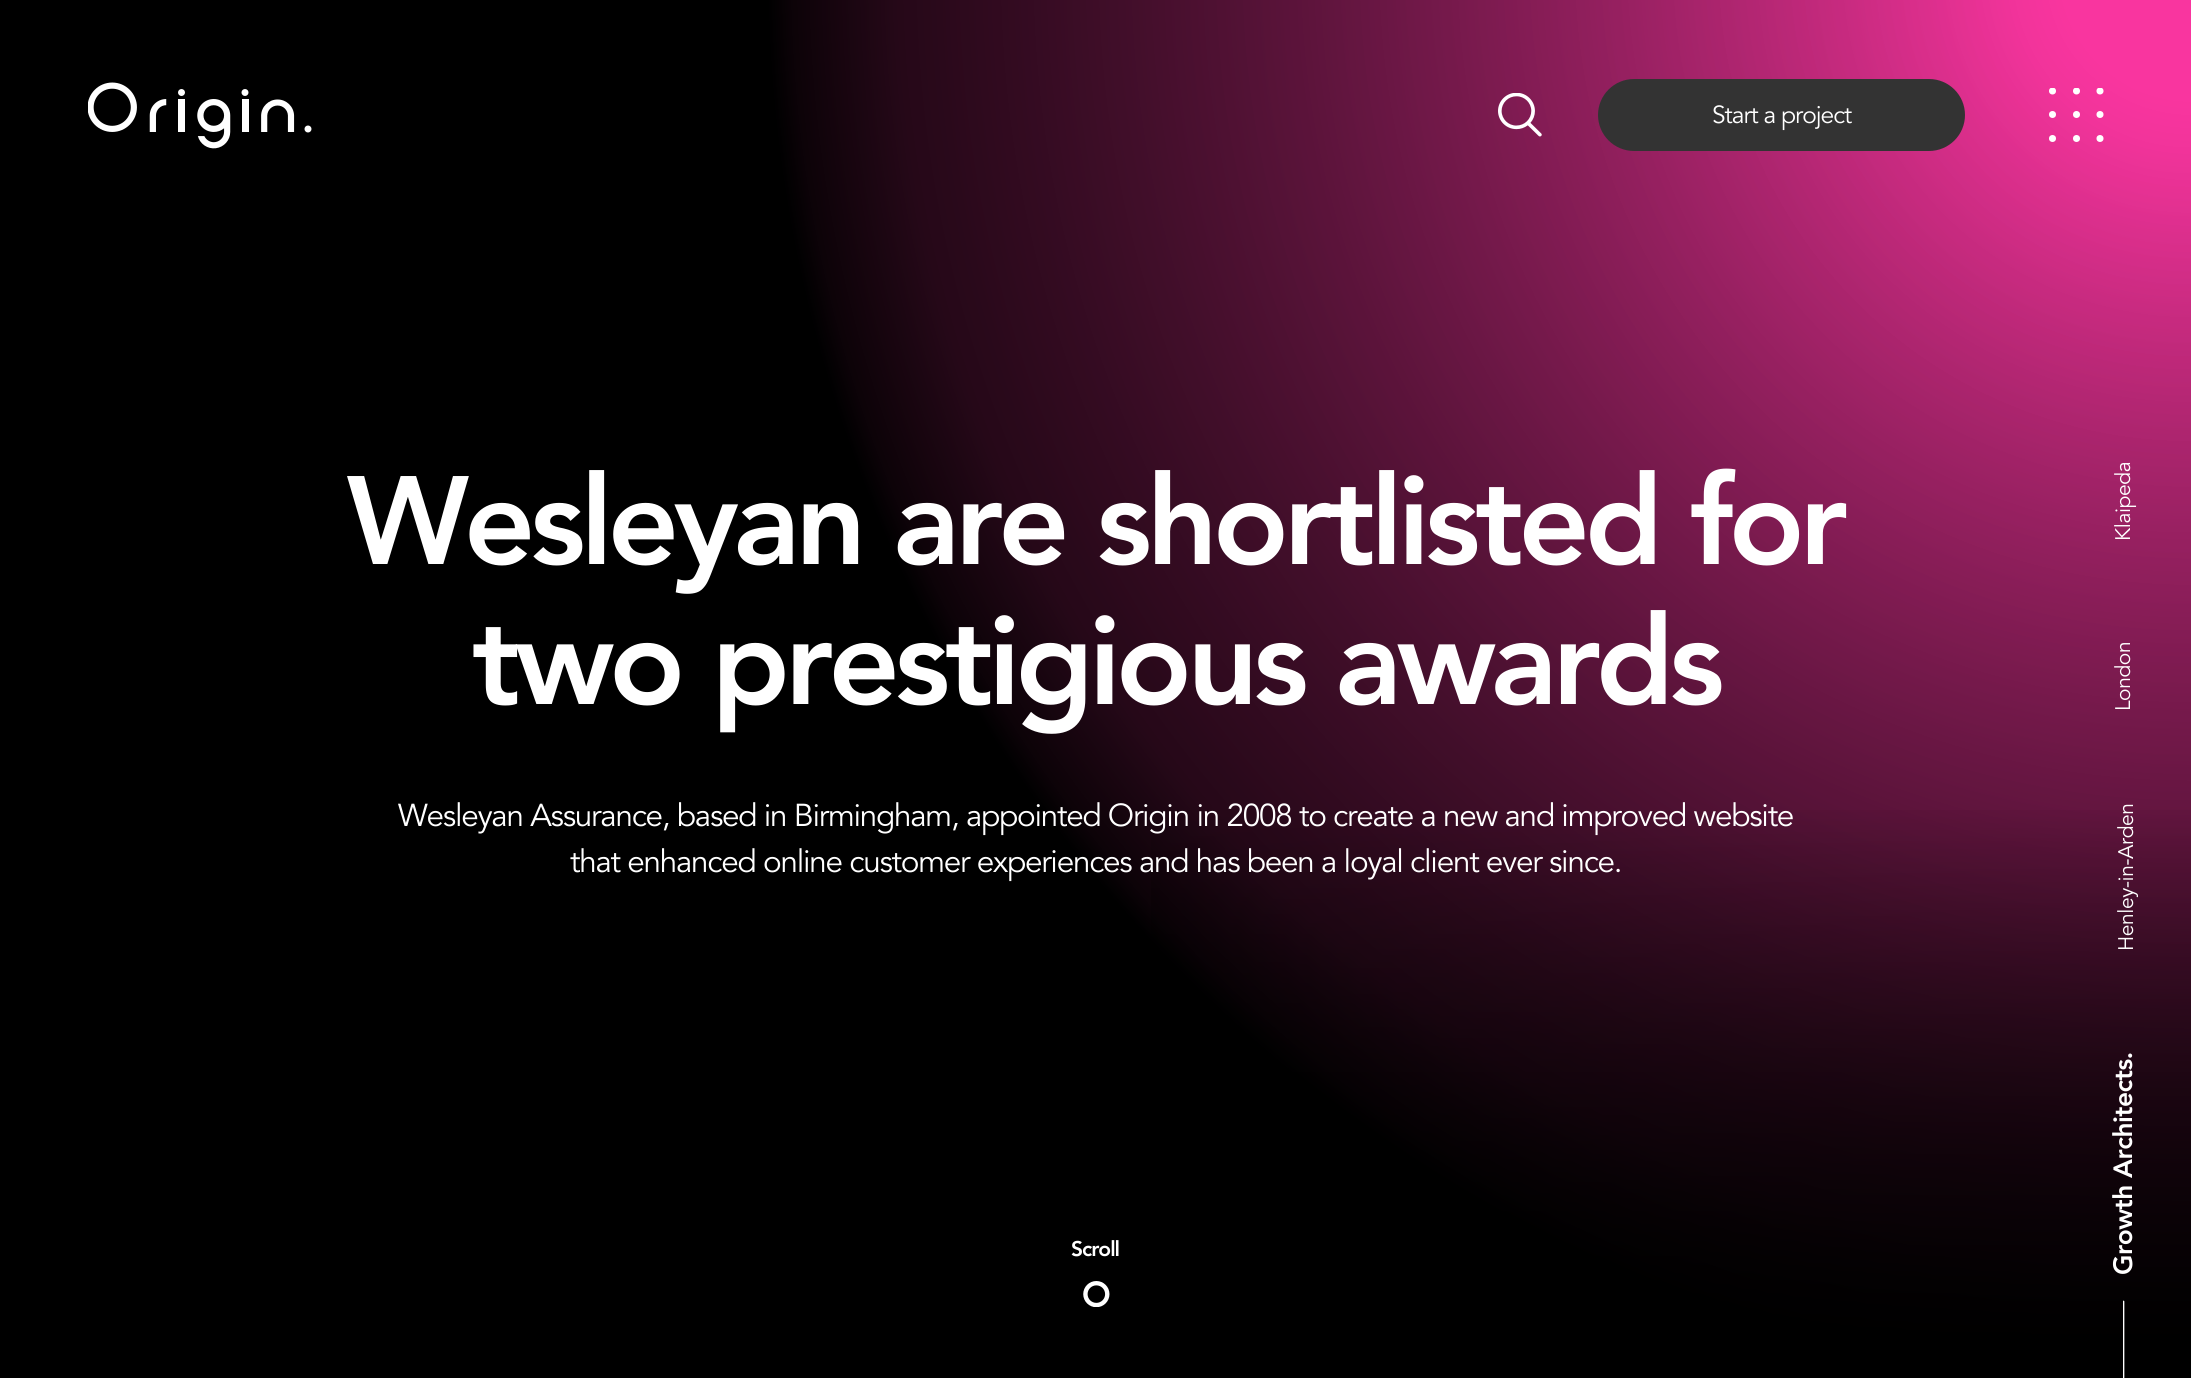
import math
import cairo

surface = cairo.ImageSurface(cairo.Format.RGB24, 2191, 1378)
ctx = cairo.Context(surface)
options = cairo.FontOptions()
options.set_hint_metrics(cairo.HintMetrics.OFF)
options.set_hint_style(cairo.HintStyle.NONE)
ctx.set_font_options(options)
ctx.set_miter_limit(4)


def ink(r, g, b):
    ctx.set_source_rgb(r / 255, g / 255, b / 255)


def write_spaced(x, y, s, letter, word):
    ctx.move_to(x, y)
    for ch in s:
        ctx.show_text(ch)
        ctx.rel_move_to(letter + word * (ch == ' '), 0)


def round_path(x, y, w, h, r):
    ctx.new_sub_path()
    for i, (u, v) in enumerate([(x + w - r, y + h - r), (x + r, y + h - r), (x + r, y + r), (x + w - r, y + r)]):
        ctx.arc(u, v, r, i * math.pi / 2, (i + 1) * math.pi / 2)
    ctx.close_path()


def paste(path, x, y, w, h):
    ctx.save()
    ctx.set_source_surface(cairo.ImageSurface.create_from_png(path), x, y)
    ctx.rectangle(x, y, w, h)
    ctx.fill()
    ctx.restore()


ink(0, 0, 0)
ctx.paint()
paste("pic1.png", 88, 82, 224, 67)
gradient = cairo.RadialGradient(2191, -31, 0, 2191, -31, 2589)
gradient.add_color_stop_rgba(0.07, 0.976, 0.208, 0.624, 1)
gradient.add_color_stop_rgba(0.5, 0.49, 0.106, 0.314, 1)
ctx.set_source(gradient)
ctx.rectangle(765, 0, 1426, 1345)
ctx.fill()
gradient = cairo.RadialGradient(2191, -31, 0, 2191, -31, 2589)
gradient.add_color_stop_rgba(0.05, 0, 0, 0, 0)
gradient.add_color_stop_rgba(0.5, 0, 0, 0, 0.7)
gradient.add_color_stop_rgba(0.54, 0, 0, 0, 0.9)
gradient.add_color_stop_rgba(0.55, 0, 0, 0, 1)
gradient.add_color_stop_rgba(1, 0, 0, 0, 1)
ctx.set_source(gradient)
ctx.rectangle(765, 0, 1426, 1345)
ctx.fill()
paste("pic2.png", 1498, 93, 44, 44)
ink(51, 51, 51)
round_path(1598, 79, 367, 72, 36)
ctx.fill()
ctx.select_font_face("Avenir")
ctx.set_font_size(24.5)
ink(255, 255, 255)
write_spaced(1712, 123, "Start a project", -1, 0)
ctx.save()
ctx.rectangle(2049, 88, 55, 54)
ctx.clip()
ctx.arc(2052.5, 91, 3.5, 0, 2 * math.pi)
ctx.fill()
ctx.restore()
ctx.arc(2052.5, 114.5, 3.5, 0, 2 * math.pi)
ctx.fill()
ctx.arc(2052.5, 138.5, 3.5, 0, 2 * math.pi)
ctx.fill()
ctx.save()
ctx.rectangle(2049, 88, 55, 54)
ctx.clip()
ctx.arc(2076.5, 91, 3.5, 0, 2 * math.pi)
ctx.fill()
ctx.restore()
ctx.arc(2076.5, 114.5, 3.5, 0, 2 * math.pi)
ctx.fill()
ctx.arc(2076.5, 138.5, 3.5, 0, 2 * math.pi)
ctx.fill()
ctx.save()
ctx.rectangle(2049, 88, 55, 54)
ctx.clip()
ctx.arc(2100, 91, 3.5, 0, 2 * math.pi)
ctx.fill()
ctx.restore()
ctx.arc(2100, 114.5, 3.5, 0, 2 * math.pi)
ctx.fill()
ctx.arc(2100, 138.5, 3.5, 0, 2 * math.pi)
ctx.fill()
ctx.select_font_face("Avenir Black")
ctx.set_font_size(124.25)
write_spaced(347, 564, "Wesleyan are shortlisted for", -5, 0)
write_spaced(472, 704, "two prestigious awards", -5, 0)
gradient = cairo.LinearGradient(2191, -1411, 2191, 1348)
gradient.add_color_stop_rgba(0.8, 0, 0, 0, 0)
gradient.add_color_stop_rgba(1, 0, 0, 0, 1)
ctx.set_source(gradient)
ctx.rectangle(1151, 810, 1040, 535)
ctx.fill()
ctx.select_font_face("Avenir")
ctx.set_font_size(31.5)
ink(255, 255, 255)
write_spaced(398, 826, "Wesleyan Assurance, based in Birmingham, appointed Origin in 2008 to create a new and improved website", -1.26, 0)
write_spaced(570, 872, "that enhanced online customer experiences and has been a loyal client ever since.", -1.26, 0)
ctx.select_font_face("Avenir Black")
ctx.set_font_size(21)
write_spaced(1071, 1256, "Scroll", -1, 0)
paste("pic3.png", 1083, 1281, 27, 26)
ctx.select_font_face("Avenir")
ctx.save()
ctx.translate(2130, 541)
ctx.rotate(-90 * math.pi / 180)
write_spaced(0, 0, "Klaipeda", -0.4, 0)
ctx.restore()
ctx.save()
ctx.translate(2130, 711)
ctx.rotate(-90 * math.pi / 180)
write_spaced(0, 0, "London", -0.4, 0)
ctx.restore()
ctx.save()
ctx.translate(2133, 951)
ctx.rotate(-90 * math.pi / 180)
write_spaced(0, 0, "Henley-in-Arden", -0.4, 0)
ctx.restore()
ctx.select_font_face("Avenir Black")
ctx.set_font_size(26.25)
ctx.save()
ctx.translate(2132, 1275)
ctx.rotate(-90 * math.pi / 180)
write_spaced(0, 0, "Growth Architects.", -0.5, 0)
ctx.restore()
ctx.save()
ctx.rectangle(2123, 1300, 2, 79)
ctx.clip()
ctx.new_path()
ctx.move_to(2123.5, 1301.5)
ctx.line_to(2123.5, 1377.5)
ctx.set_line_width(1.7)
ctx.set_line_cap(cairo.LineCap.ROUND)
ctx.stroke()
ctx.restore()
surface.write_to_png("screenshot.png")
